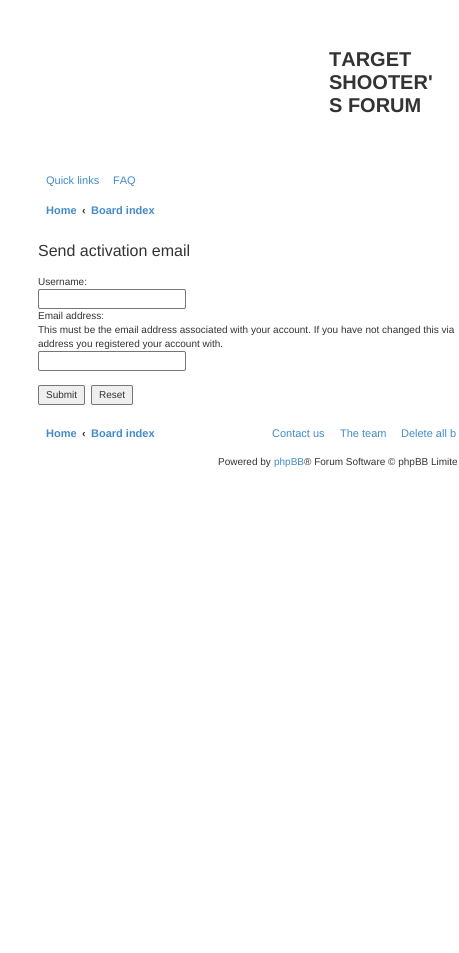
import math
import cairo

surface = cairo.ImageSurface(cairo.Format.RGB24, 459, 953)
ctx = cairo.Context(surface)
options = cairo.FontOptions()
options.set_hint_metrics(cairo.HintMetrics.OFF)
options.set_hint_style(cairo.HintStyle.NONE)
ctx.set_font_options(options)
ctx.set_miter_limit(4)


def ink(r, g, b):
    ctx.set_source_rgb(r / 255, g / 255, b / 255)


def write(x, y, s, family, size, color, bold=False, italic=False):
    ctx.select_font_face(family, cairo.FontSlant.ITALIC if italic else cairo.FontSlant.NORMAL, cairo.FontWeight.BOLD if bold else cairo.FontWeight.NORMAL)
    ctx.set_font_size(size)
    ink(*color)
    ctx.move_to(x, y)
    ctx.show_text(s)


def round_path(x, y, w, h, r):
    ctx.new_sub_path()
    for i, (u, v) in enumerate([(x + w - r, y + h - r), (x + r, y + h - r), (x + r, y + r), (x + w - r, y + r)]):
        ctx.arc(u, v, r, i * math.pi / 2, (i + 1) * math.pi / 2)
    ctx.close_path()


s1 = dict(family="Liberation Sans", size=20, color=(51, 51, 51), bold=True)
s2 = dict(family="Liberation Sans", size=11, color=(66, 139, 202))
s3 = dict(family="Liberation Sans", size=11, color=(66, 139, 202), bold=True)
s4 = dict(family="Liberation Sans", size=11, color=(51, 51, 51), bold=True)
s5 = dict(family="Liberation Sans", size=16, color=(51, 51, 51))
s6 = dict(family="Liberation Sans", size=10, color=(51, 51, 51))
s7 = dict(family="Liberation Sans", size=10, color=(66, 139, 202))

ink(255, 255, 255)
ctx.paint()
write(329, 66, "TARGET", **s1)
write(329, 89, "SHOOTER'", **s1)
write(329, 112, "S FORUM", **s1)
write(46, 184, "Quick links", **s2)
write(113, 184, "FAQ", **s2)
write(46, 214, "Home", **s3)
write(82, 214, "‹", **s4)
write(91, 214, "Board index", **s3)
write(38, 256, "Send activation email", **s5)
write(38, 285, "Username:", **s6)
round_path(38.5, 289.5, 147, 19, 1.5)
ink(118, 118, 118)
ctx.set_line_width(1)
ctx.stroke()
write(38, 319, "Email address:", **s6)
write(38, 333, "This must be the email address associated with your account. If you have not changed this via", **s6)
write(38, 347, "address you registered your account with.", **s6)
round_path(38.5, 351.5, 147, 19, 1.5)
ink(118, 118, 118)
ctx.stroke()
ink(239, 239, 239)
round_path(38.5, 385.5, 46, 19, 1.5)
ctx.fill_preserve()
ink(118, 118, 118)
ctx.stroke()
write(46, 398, "Submit", **s6)
ink(239, 239, 239)
round_path(91.5, 385.5, 41, 19, 1.5)
ctx.fill_preserve()
ink(118, 118, 118)
ctx.stroke()
write(99, 398, "Reset", **s6)
write(46, 437, "Home", **s3)
write(82, 437, "‹", **s4)
write(91, 437, "Board index", **s3)
write(272, 437, "Contact us", **s2)
write(340, 437, "The team", **s2)
write(401, 437, "Delete all b", **s2)
write(218, 465, "Powered by", **s6)
write(274, 465, "phpBB", **s7)
write(304, 465, "® Forum Software © phpBB Limite", **s6)
surface.write_to_png("screenshot.png")
